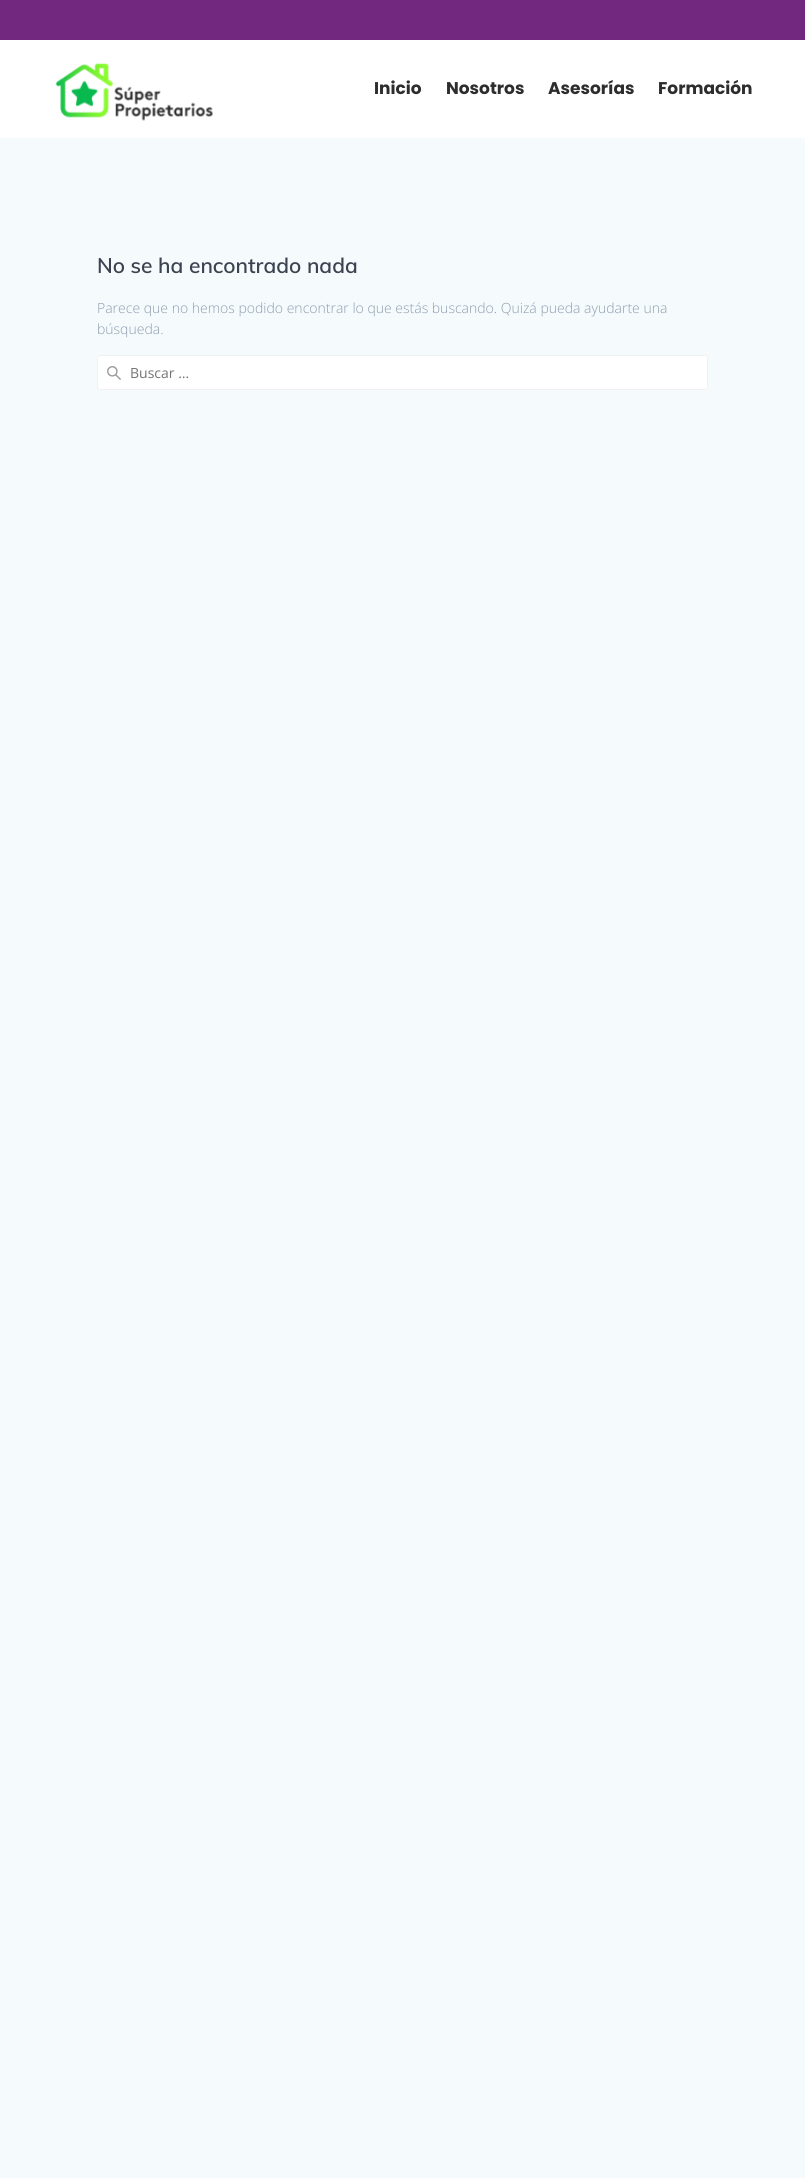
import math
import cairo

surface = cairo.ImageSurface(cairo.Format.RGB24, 805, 2178)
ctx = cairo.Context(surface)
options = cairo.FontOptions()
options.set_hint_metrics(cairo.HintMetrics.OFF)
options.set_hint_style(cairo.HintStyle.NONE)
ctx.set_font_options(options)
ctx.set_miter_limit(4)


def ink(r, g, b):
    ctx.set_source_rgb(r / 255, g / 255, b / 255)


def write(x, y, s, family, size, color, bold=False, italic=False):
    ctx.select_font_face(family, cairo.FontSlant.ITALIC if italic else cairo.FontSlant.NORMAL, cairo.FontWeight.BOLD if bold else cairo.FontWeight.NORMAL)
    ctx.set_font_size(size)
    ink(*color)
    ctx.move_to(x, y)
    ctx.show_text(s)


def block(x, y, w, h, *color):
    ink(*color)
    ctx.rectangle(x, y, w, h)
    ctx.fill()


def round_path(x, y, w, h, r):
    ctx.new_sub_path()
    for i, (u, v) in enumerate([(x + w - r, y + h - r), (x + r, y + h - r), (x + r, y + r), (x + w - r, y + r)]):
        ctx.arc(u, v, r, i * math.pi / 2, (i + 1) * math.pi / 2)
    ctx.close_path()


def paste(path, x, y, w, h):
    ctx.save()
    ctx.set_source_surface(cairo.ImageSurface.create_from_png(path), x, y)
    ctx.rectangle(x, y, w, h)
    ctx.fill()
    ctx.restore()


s1 = dict(family="Poppins", size=17, color=(45, 45, 45), bold=True)
s2 = dict(family="Muli SemiBold", size=21, color=(60, 66, 79))
s3 = dict(family="Open Sans Light", size=14, color=(142, 157, 174))
s4 = dict(family="Open Sans", size=14, color=(117, 117, 117))

ink(245, 250, 253)
ctx.paint()
block(0, 0, 805, 40, 114, 40, 127)
block(0, 40, 805, 98, 255, 255, 255)
paste("pic1.png", 55, 63, 158, 58)
write(374, 94, "Inicio", **s1)
write(446, 94, "Nosotros", **s1)
write(548, 94, "Asesorías", **s1)
write(658, 94, "Formación", **s1)
write(97, 273, "No se ha encontrado nada", **s2)
write(97, 313, "Parece que no hemos podido encontrar lo que estás buscando. Quizá pueda ayudarte una", **s3)
write(97, 334, "búsqueda.", **s3)
ink(255, 255, 255)
round_path(97, 355, 611, 35, 3)
ctx.fill()
paste("pic2.png", 107, 366, 14, 14)
round_path(97.5, 355.5, 610, 34, 2.5)
ink(241, 241, 241)
ctx.set_line_width(1)
ctx.stroke()
write(130, 378, "Buscar …", **s4)
surface.write_to_png("screenshot.png")
